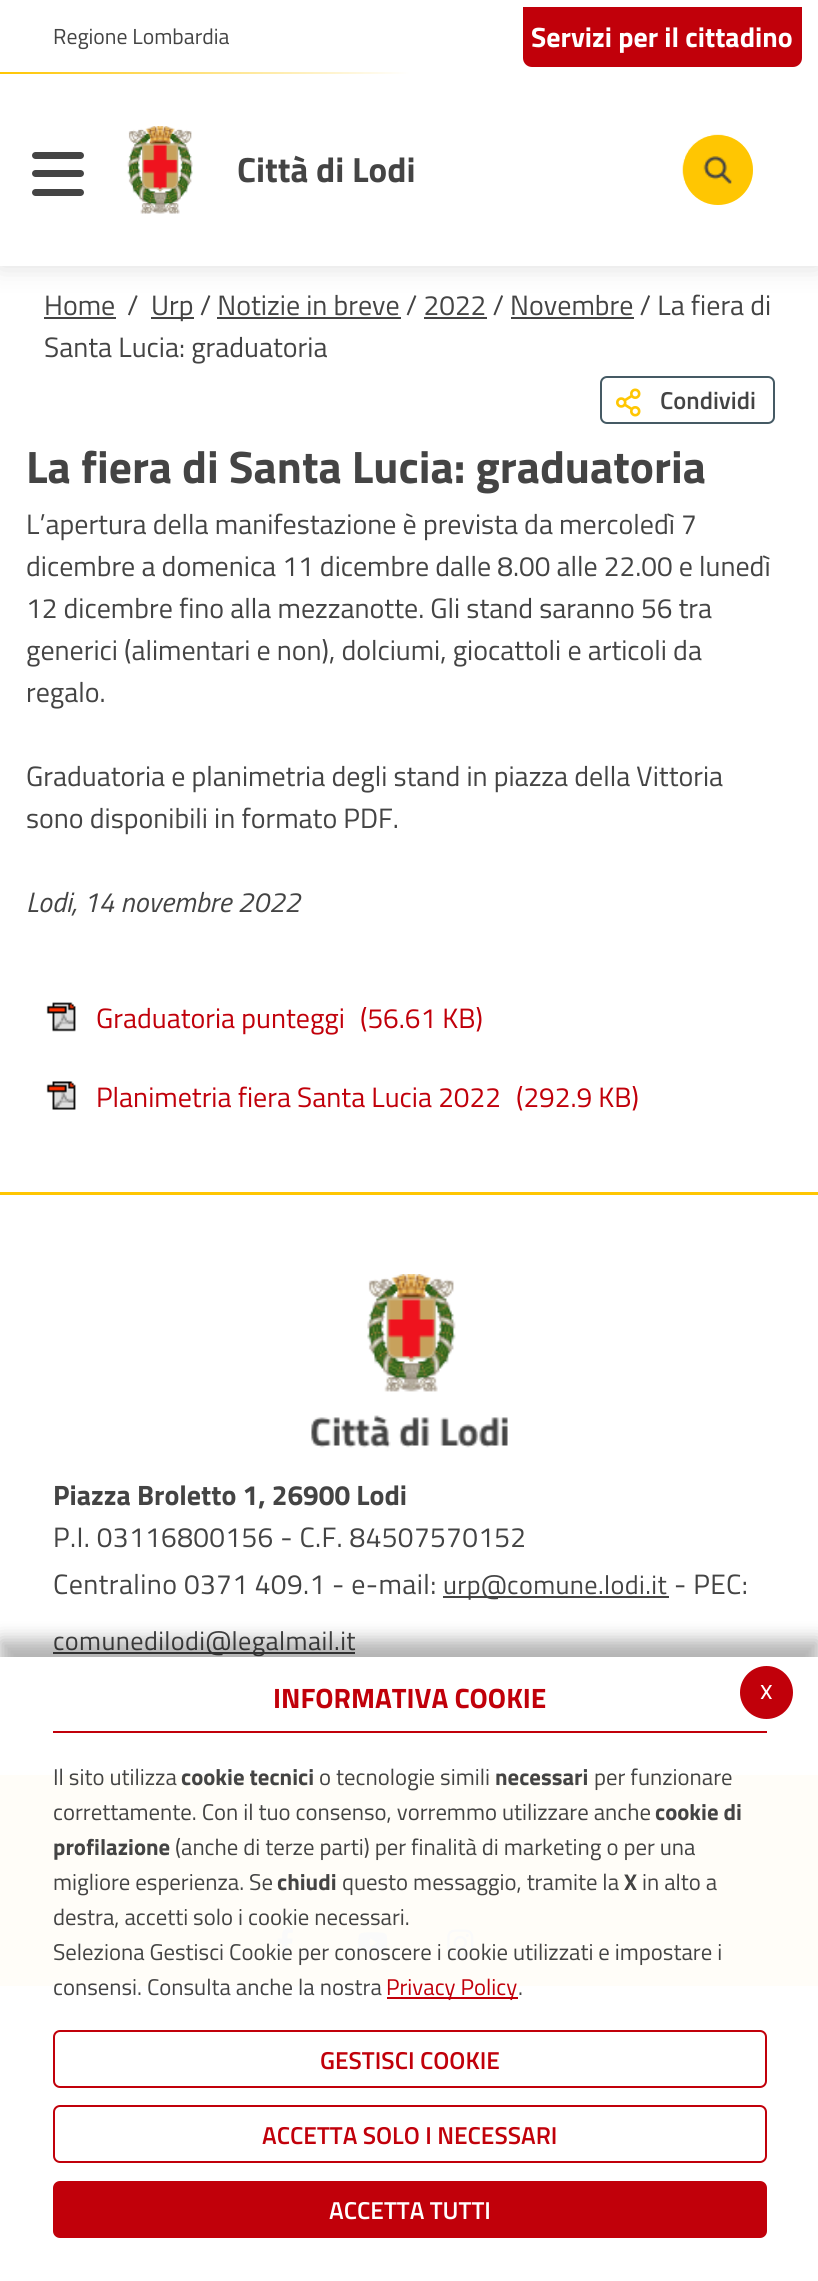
import math
import cairo

surface = cairo.ImageSurface(cairo.Format.RGB24, 818, 2281)
ctx = cairo.Context(surface)
options = cairo.FontOptions()
options.set_hint_metrics(cairo.HintMetrics.OFF)
options.set_hint_style(cairo.HintStyle.NONE)
ctx.set_font_options(options)
ctx.set_miter_limit(4)


def ink(r, g, b):
    ctx.set_source_rgb(r / 255, g / 255, b / 255)


def write(x, y, s, family, size, color, bold=False, italic=False):
    ctx.select_font_face(family, cairo.FontSlant.ITALIC if italic else cairo.FontSlant.NORMAL, cairo.FontWeight.BOLD if bold else cairo.FontWeight.NORMAL)
    ctx.set_font_size(size)
    ink(*color)
    ctx.move_to(x, y)
    ctx.show_text(s)


def write_spaced(x, y, s, letter, word):
    ctx.move_to(x, y)
    for ch in s:
        ctx.show_text(ch)
        ctx.rel_move_to(letter + word * (ch == ' '), 0)


def block(x, y, w, h, *color):
    ink(*color)
    ctx.rectangle(x, y, w, h)
    ctx.fill()


def round_path(x, y, w, h, r):
    ctx.new_sub_path()
    for i, (u, v) in enumerate([(x + w - r, y + h - r), (x + r, y + h - r), (x + r, y + r), (x + w - r, y + r)]):
        ctx.arc(u, v, r, i * math.pi / 2, (i + 1) * math.pi / 2)
    ctx.close_path()


def blur_box(x, y, w, h, r, blur, alpha):
    ctx.push_group_with_content(cairo.Content.ALPHA)
    ctx.set_operator(cairo.Operator.SOURCE)
    for i in range(15, -16, -2):
        e = blur * i / 6
        if min(w, h) + 2 * e > 0:
            ctx.set_source_rgba(0, 0, 0, alpha * math.erfc((i - 1) / 8.5) / 2)
            round_path(x - e, y - e, w + 2 * e, h + 2 * e, max(0, min(r + e + blur * .6, min(w, h) / 2 + e)))
            ctx.fill()
    ctx.mask(ctx.pop_group())


def paste(path, x, y, w, h):
    ctx.save()
    ctx.set_source_surface(cairo.ImageSurface.create_from_png(path), x, y)
    ctx.rectangle(x, y, w, h)
    ctx.fill()
    ctx.restore()


s1 = dict(family="Titillium Web", size=21.75, color=(68, 68, 68))
s2 = dict(family="Titillium Web", size=28, color=(255, 255, 255), bold=True)
s3 = dict(family="Titillium Web", size=35, color=(68, 68, 68), bold=True)
s4 = dict(family="Titillium Web", size=28, color=(68, 68, 68))
s5 = dict(family="Titillium Web SemiBold", size=24.5, color=(68, 68, 68))
s6 = dict(family="Titillium Web", size=45.5, color=(68, 68, 68), bold=True)
s7 = dict(family="Titillium Web", size=28, color=(68, 68, 68), italic=True)
s8 = dict(family="Titillium Web", size=28, color=(193, 0, 10))
s9 = dict(family="Titillium Web", size=28, color=(68, 68, 68), bold=True)
s10 = dict(family="Titillium Web", size=28, color=(193, 0, 10), bold=True)
s11 = dict(family="Titillium Web", size=22.75, color=(68, 68, 68))
s12 = dict(family="Titillium Web", size=22.75, color=(68, 68, 68), bold=True)
s13 = dict(family="Titillium Web", size=22.75, color=(193, 0, 10))
s14 = dict(family="Titillium Web SemiBold", size=24.5, color=(193, 0, 10))
s15 = dict(family="Titillium Web SemiBold", size=24.5, color=(255, 255, 255))
s16 = dict(family="Titillium Web", size=28, color=(255, 255, 255))

ink(255, 255, 255)
ctx.paint()
ctx.save()
ctx.rectangle(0, 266, 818, 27)
ctx.clip()
ink(221, 221, 221)
blur_box(0, 0, 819, 266, 0, 13, 1)
ctx.restore()
write(53, 44, "Regione Lombardia", **s1)
ink(193, 0, 10)
ctx.new_path()
ctx.move_to(523, 7)
ctx.line_to(802, 7)
ctx.line_to(802, 58)
ctx.curve_to(802, 63, 798, 67, 793, 67)
ctx.line_to(532, 67)
ctx.curve_to(527, 67, 523, 63, 523, 58)
ctx.close_path()
ctx.fill()
write(531, 47, "Servizi per il cittadino", **s2)
gradient = cairo.LinearGradient(410, 73, 0, 73)
gradient.add_color_stop_rgba(0, 1, 1, 1, 1)
gradient.add_color_stop_rgba(1, 1, 0.776, 0.008, 1)
ctx.set_source(gradient)
ctx.rectangle(0, 72, 410, 2)
ctx.fill()
ink(68, 68, 68)
round_path(32, 152, 52, 7, 3.5)
ctx.fill()
round_path(32, 170, 52, 7, 3.5)
ctx.fill()
round_path(32, 189, 52, 7, 3.5)
ctx.fill()
paste("pic1.png", 127, 126, 66, 88)
write(237, 182, "Città di Lodi", **s3)
ink(255, 198, 2)
ctx.new_path()
ctx.arc(718, 170, 35, 0, 2 * math.pi)
ctx.fill()
paste("pic2.png", 682, 134, 71, 71)
write(44, 315, "Home", **s4)
block(44, 317, 72, 2, 68, 68, 68)
write(127, 315, "/", **s4)
block(151, 317, 43, 2, 68, 68, 68)
write(151, 315, "Urp / Notizie in breve / 2022 / Novembre / La fiera di", **s4)
block(217, 317, 184, 2, 68, 68, 68)
block(424, 317, 63, 2, 68, 68, 68)
block(511, 317, 123, 2, 68, 68, 68)
write(44, 357, "Santa Lucia: graduatoria", **s4)
round_path(601, 377, 173, 46, 6)
ink(69, 90, 100)
ctx.stroke()
paste("pic3.png", 616, 388, 25, 29)
write(660, 409, "Condividi", **s5)
write(26, 483, "La fiera di Santa Lucia: graduatoria", **s6)
write(26, 534, "L’apertura della manifestazione è prevista da mercoledì 7", **s4)
write(26, 576, "dicembre a domenica 11 dicembre dalle 8.00 alle 22.00 e lunedì", **s4)
write(26, 618, "12 dicembre fino alla mezzanotte. Gli stand saranno 56 tra", **s4)
write(26, 660, "generici (alimentari e non), dolciumi, giocattoli e articoli da", **s4)
write(26, 702, "regalo.", **s4)
write(26, 786, "Graduatoria e planimetria degli stand in piazza della Vittoria", **s4)
write(26, 828, "sono disponibili in formato PDF.", **s4)
write(26, 912, "Lodi, 14 novembre 2022", **s7)
paste("pic4.png", 46, 1002, 30, 30)
write(96, 1028, "Graduatoria punteggi", **s8)
write(360, 1028, "(56.61 KB)", **s8)
paste("pic5.png", 46, 1081, 30, 29)
write(96, 1107, "Planimetria fiera Santa Lucia 2022", **s8)
write(516, 1107, "(292.9 KB)", **s8)
block(0, 1192, 818, 3, 255, 198, 2)
paste("pic6.png", 311, 1274, 197, 174)
write(53, 1505, "Piazza Broletto 1, 26900 Lodi", **s9)
ctx.select_font_face("Titillium Web")
write_spaced(53, 1547, "P.I. 03116800156 - C.F. 84507570152", 0.4, 0)
write_spaced(53, 1594, "Centralino 0371 409.1 - e-mail:", 0.4, 0)
block(443, 1596, 226, 2, 68, 68, 68)
ctx.set_font_size(26.25)
write_spaced(443, 1594, "urp@comune.lodi.it", 0.4, 0)
ctx.set_font_size(28)
write_spaced(674, 1594, "- PEC:", 0.4, 0)
block(53, 1652, 302, 2, 68, 68, 68)
ctx.set_font_size(26.25)
write_spaced(53, 1650, "comunedilodi@legalmail.it", 0.4, 0)
block(0, 1775, 818, 211, 255, 198, 2)
paste("pic7.png", 277, 1928, 16, 29)
paste("pic8.png", 358, 1932, 30, 21)
paste("pic9.png", 447, 1929, 27, 27)
ctx.save()
ctx.set_fill_rule(cairo.FillRule.EVEN_ODD)
ctx.new_path()
ctx.move_to(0, 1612)
ctx.line_to(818, 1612)
ctx.line_to(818, 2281)
ctx.line_to(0, 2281)
ctx.close_path()
ctx.move_to(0, 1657)
ctx.line_to(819, 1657)
ctx.line_to(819, 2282)
ctx.line_to(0, 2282)
ctx.close_path()
ctx.clip()
ink(0, 0, 0)
blur_box(0, 1640, 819, 625, 0, 9, 0.3)
ctx.restore()
ctx.set_source_rgba(1, 1, 1, 0.97)
ctx.rectangle(0, 1657, 818, 329)
ctx.fill()
block(53, 1731, 714, 2, 193, 0, 10)
write(273, 1708, "INFORMATIVA COOKIE", **s10)
write(53, 1785, "Il sito utilizza", **s11)
write(181, 1785, "cookie tecnici", **s12)
write(319, 1785, "o tecnologie simili", **s11)
write(495, 1785, "necessari", **s12)
write(594, 1785, "per funzionare", **s11)
write(53, 1820, "correttamente. Con il tuo consenso, vorremmo utilizzare anche", **s11)
write(655, 1820, "cookie di", **s12)
write(53, 1855, "profilazione", **s12)
write(175, 1855, "(anche di terze parti) per finalità di marketing o per una", **s11)
write(53, 1890, "migliore esperienza. Se", **s11)
write(277, 1890, "chiudi", **s12)
write(342, 1890, "questo messaggio, tramite la", **s11)
write(624, 1890, "X", **s12)
write(642, 1890, "in alto a", **s11)
write(53, 1925, "destra, accetti solo i cookie necessari.", **s11)
write(53, 1960, "Seleziona Gestisci Cookie per conoscere i cookie utilizzati e impostare i", **s11)
write(53, 1995, "consensi. Consulta anche la nostra", **s11)
block(387, 1997, 131, 2, 193, 0, 10)
write(386, 1995, "Privacy Policy", **s13)
write(518, 1995, ".", **s11)
round_path(54, 2031, 712, 56, 6)
ink(193, 0, 10)
ctx.stroke()
write(320, 2069, "GESTISCI COOKIE", **s14)
round_path(54, 2106, 712, 56, 6)
ctx.stroke()
write(262, 2144, "ACCETTA SOLO I NECESSARI", **s14)
round_path(54, 2182, 712, 55, 6)
ctx.fill_preserve()
ctx.stroke()
write(329, 2219, "ACCETTA TUTTI", **s15)
ink(193, 0, 10)
ctx.new_path()
ctx.arc(766.5, 1692.5, 26.5, 0, 2 * math.pi)
ctx.fill()
write(760, 1699, "x", **s16)
surface.write_to_png("screenshot.png")
